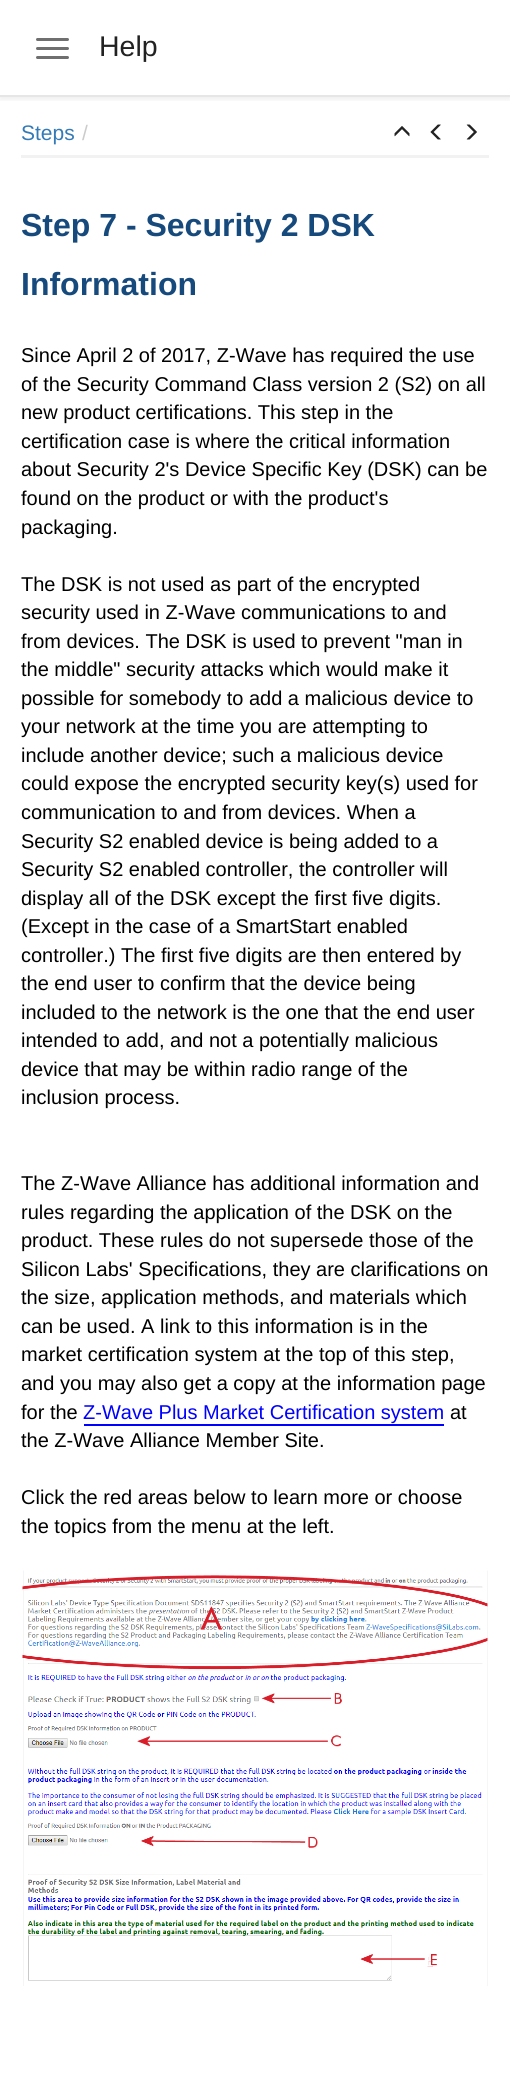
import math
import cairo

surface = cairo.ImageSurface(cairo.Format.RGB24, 510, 2077)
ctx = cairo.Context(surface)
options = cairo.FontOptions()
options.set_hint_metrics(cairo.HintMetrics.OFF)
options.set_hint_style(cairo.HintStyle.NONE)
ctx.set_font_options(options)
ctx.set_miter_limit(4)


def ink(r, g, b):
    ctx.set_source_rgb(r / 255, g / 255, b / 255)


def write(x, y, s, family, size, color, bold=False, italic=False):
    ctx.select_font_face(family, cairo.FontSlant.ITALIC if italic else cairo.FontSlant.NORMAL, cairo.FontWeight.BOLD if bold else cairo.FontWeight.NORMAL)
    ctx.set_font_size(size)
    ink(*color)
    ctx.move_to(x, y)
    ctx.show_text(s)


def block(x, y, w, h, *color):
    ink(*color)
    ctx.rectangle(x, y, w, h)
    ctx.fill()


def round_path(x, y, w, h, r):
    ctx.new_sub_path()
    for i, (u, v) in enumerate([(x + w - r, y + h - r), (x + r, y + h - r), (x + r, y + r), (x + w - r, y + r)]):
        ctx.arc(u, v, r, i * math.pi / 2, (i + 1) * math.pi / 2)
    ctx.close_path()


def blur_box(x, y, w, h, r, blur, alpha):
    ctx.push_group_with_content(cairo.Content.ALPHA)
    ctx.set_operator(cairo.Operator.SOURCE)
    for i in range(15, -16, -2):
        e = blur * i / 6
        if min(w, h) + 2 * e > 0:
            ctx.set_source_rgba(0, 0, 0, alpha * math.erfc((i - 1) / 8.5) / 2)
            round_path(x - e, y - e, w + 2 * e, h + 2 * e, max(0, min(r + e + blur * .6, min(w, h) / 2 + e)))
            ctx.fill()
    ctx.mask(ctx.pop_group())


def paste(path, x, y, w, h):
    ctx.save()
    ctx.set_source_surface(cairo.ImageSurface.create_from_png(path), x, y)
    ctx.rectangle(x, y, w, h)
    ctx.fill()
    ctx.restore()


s1 = dict(family="Liberation Sans", size=28.5, color=(34, 34, 34))
s2 = dict(family="Liberation Sans", size=21, color=(51, 122, 183))
s3 = dict(family="Liberation Sans", size=21, color=(204, 204, 204))
s4 = dict(family="Liberation Sans", size=32, color=(23, 74, 124), bold=True)
s5 = dict(family="Liberation Sans", size=20, color=(0, 0, 0))
s6 = dict(family="Liberation Sans", size=20, color=(0, 0, 255))

ink(255, 255, 255)
ctx.paint()
ctx.save()
ctx.rectangle(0, 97, 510, 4)
ctx.clip()
ink(0, 0, 0)
blur_box(0, 2, 510, 96, 0, 4, 0.1)
ctx.restore()
block(0, 95, 510, 2, 230, 230, 230)
ink(111, 111, 111)
round_path(36, 38, 33, 3, 1.5)
ctx.fill()
round_path(36, 47, 33, 3, 1.5)
ctx.fill()
round_path(36, 56, 33, 3, 1.5)
ctx.fill()
write(99, 56, "Help", **s1)
block(21, 155, 468, 3, 242, 242, 242)
write(21, 140, "Steps", **s2)
write(82, 140, "/", **s3)
paste("pic1.png", 394, 126, 16, 11)
paste("pic2.png", 430, 124, 11, 16)
paste("pic3.png", 466, 124, 11, 16)
write(21, 236, "Step 7 - Security 2 DSK", **s4)
write(21, 295, "Information", **s4)
write(21, 362, "Since April 2 of 2017, Z-Wave has required the use", **s5)
write(21, 391, "of the Security Command Class version 2 (S2) on all", **s5)
write(21, 419, "new product certifications. This step in the", **s5)
write(21, 448, "certification case is where the critical information", **s5)
write(21, 476, "about Security 2's Device Specific Key (DSK) can be", **s5)
write(21, 505, "found on the product or with the product's", **s5)
write(21, 534, "packaging.", **s5)
write(21, 591, "The DSK is not used as part of the encrypted", **s5)
write(21, 619, "security used in Z-Wave communications to and", **s5)
write(21, 648, "from devices. The DSK is used to prevent \"man in", **s5)
write(21, 676, "the middle\" security attacks which would make it", **s5)
write(21, 705, "possible for somebody to add a malicious device to", **s5)
write(21, 733, "your network at the time you are attempting to", **s5)
write(21, 762, "include another device; such a malicious device", **s5)
write(21, 790, "could expose the encrypted security key(s) used for", **s5)
write(21, 819, "communication to and from devices. When a", **s5)
write(21, 848, "Security S2 enabled device is being added to a", **s5)
write(21, 876, "Security S2 enabled controller, the controller will", **s5)
write(21, 905, "display all of the DSK except the first five digits.", **s5)
write(21, 933, "(Except in the case of a SmartStart enabled", **s5)
write(21, 962, "controller.) The first five digits are then entered by", **s5)
write(21, 990, "the end user to confirm that the device being", **s5)
write(21, 1019, "included to the network is the one that the end user", **s5)
write(21, 1047, "intended to add, and not a potentially malicious", **s5)
write(21, 1076, "device that may be within radio range of the", **s5)
write(21, 1104, "inclusion process.", **s5)
write(21, 1190, "The Z-Wave Alliance has additional information and", **s5)
write(21, 1219, "rules regarding the application of the DSK on the", **s5)
write(21, 1247, "product. These rules do not supersede those of the", **s5)
write(21, 1276, "Silicon Labs' Specifications, they are clarifications on", **s5)
write(21, 1304, "the size, application methods, and materials which", **s5)
write(21, 1333, "can be used. A link to this information is in the", **s5)
write(21, 1361, "market certification system at the top of this step,", **s5)
write(21, 1390, "and you may also get a copy at the information page", **s5)
write(21, 1419, "for the", **s5)
write(83, 1419, "Z-Wave Plus Market Certification system", **s6)
block(84, 1424, 360, 2, 0, 0, 255)
write(450, 1419, "at", **s5)
write(21, 1447, "the Z-Wave Alliance Member Site.", **s5)
write(21, 1504, "Click the red areas below to learn more or choose", **s5)
write(21, 1533, "the topics from the menu at the left.", **s5)
paste("pic4.png", 22, 1570, 466, 416)
surface.write_to_png("screenshot.png")
